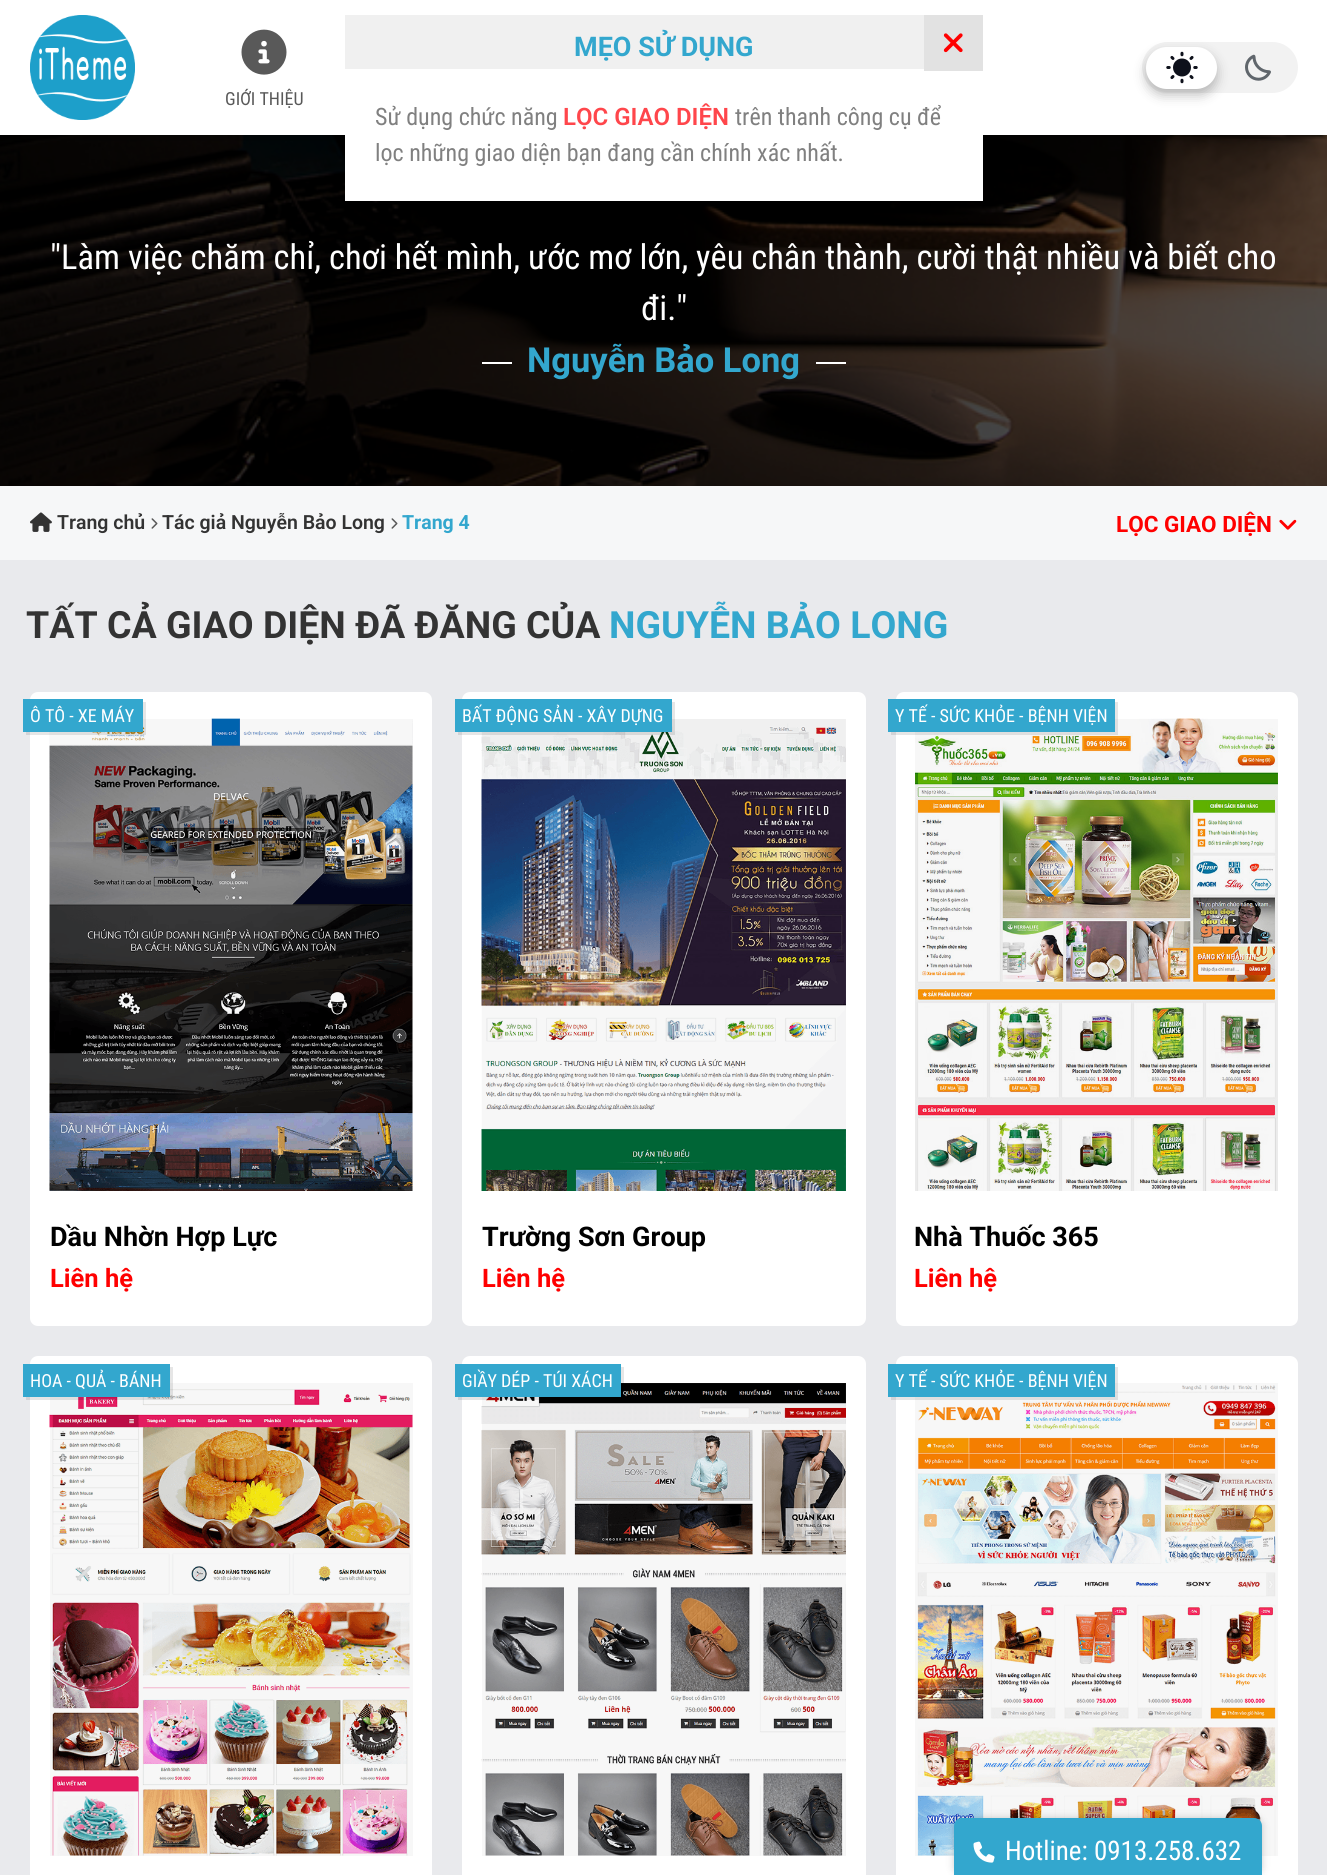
import math
import cairo

surface = cairo.ImageSurface(cairo.Format.RGB24, 1327, 1875)
ctx = cairo.Context(surface)
options = cairo.FontOptions()
options.set_hint_metrics(cairo.HintMetrics.OFF)
options.set_hint_style(cairo.HintStyle.NONE)
ctx.set_font_options(options)
ctx.set_miter_limit(4)


def ink(r, g, b):
    ctx.set_source_rgb(r / 255, g / 255, b / 255)


def write(x, y, s, family, size, color, bold=False, italic=False):
    ctx.select_font_face(family, cairo.FontSlant.ITALIC if italic else cairo.FontSlant.NORMAL, cairo.FontWeight.BOLD if bold else cairo.FontWeight.NORMAL)
    ctx.set_font_size(size)
    ink(*color)
    ctx.move_to(x, y)
    ctx.show_text(s)


def block(x, y, w, h, *color):
    ink(*color)
    ctx.rectangle(x, y, w, h)
    ctx.fill()


def round_path(x, y, w, h, r):
    ctx.new_sub_path()
    for i, (u, v) in enumerate([(x + w - r, y + h - r), (x + r, y + h - r), (x + r, y + r), (x + w - r, y + r)]):
        ctx.arc(u, v, r, i * math.pi / 2, (i + 1) * math.pi / 2)
    ctx.close_path()


def blur_box(x, y, w, h, r, blur, alpha):
    ctx.push_group_with_content(cairo.Content.ALPHA)
    ctx.set_operator(cairo.Operator.SOURCE)
    for i in range(15, -16, -2):
        e = blur * i / 6
        if min(w, h) + 2 * e > 0:
            ctx.set_source_rgba(0, 0, 0, alpha * math.erfc((i - 1) / 8.5) / 2)
            round_path(x - e, y - e, w + 2 * e, h + 2 * e, max(0, min(r + e + blur * .6, min(w, h) / 2 + e)))
            ctx.fill()
    ctx.mask(ctx.pop_group())


def paste(path, x, y, w, h):
    ctx.save()
    ctx.set_source_surface(cairo.ImageSurface.create_from_png(path), x, y)
    ctx.rectangle(x, y, w, h)
    ctx.fill()
    ctx.restore()


s1 = dict(family="Roboto Condensed", size=18, color=(89, 89, 89))
s2 = dict(family="Roboto", size=27, color=(51, 167, 206), bold=True)
s3 = dict(family="Roboto Condensed", size=24, color=(128, 128, 128))
s4 = dict(family="Roboto SemiBold", size=24, color=(255, 70, 75))
s5 = dict(family="Roboto Condensed", size=34.5, color=(255, 255, 255))
s6 = dict(family="Roboto", size=34.5, color=(51, 167, 206), bold=True)
s7 = dict(family="Roboto SemiBold", size=19.5, color=(51, 51, 51))
s8 = dict(family="Roboto", size=19.5, color=(51, 167, 206), bold=True)
s9 = dict(family="Roboto", size=22.5, color=(255, 0, 0), bold=True)
s10 = dict(family="Roboto", size=37.5, color=(51, 51, 51), bold=True)
s11 = dict(family="Roboto", size=37.5, color=(51, 167, 206), bold=True)
s12 = dict(family="Roboto Condensed", size=18, color=(255, 255, 255))
s13 = dict(family="Roboto", size=27, color=(0, 0, 0), bold=True)
s14 = dict(family="Roboto", size=25.5, color=(255, 0, 0), bold=True)
s15 = dict(family="Roboto Condensed", size=27, color=(255, 255, 255))

ink(233, 234, 237)
ctx.paint()
paste("pic6.png", 0, 135, 1327, 351)
ink(1, 2, 2)
blur_box(3, 5, 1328, 135, 0, 2, 0.18)
block(0, 0, 1327, 135, 255, 255, 255)
paste("pic1.png", 30, 15, 105, 105)
paste("pic2.png", 241, 29, 46, 46)
write(225, 105, "GIỚI THIỆU", **s1)
ink(242, 242, 242)
round_path(1142, 42, 156, 51, 25.5)
ctx.fill()
ink(0, 0, 0)
blur_box(1146, 53, 71, 42, 21, 6, 0.25)
ink(255, 255, 255)
round_path(1146, 47, 71, 42, 21)
ctx.fill()
paste("pic3.png", 1166, 51, 32, 33)
paste("pic4.png", 1245, 54, 26, 27)
block(345, 135, 638, 66, 255, 255, 255)
block(345, 15, 579, 54, 240, 240, 240)
write(574, 56, "MẸO SỬ DỤNG", **s2)
block(924, 15, 59, 56, 226, 226, 226)
paste("pic5.png", 943, 33, 20, 20)
write(375, 125, "Sử dụng chức năng", **s3)
write(563, 125, "LỌC GIAO DIỆN", **s4)
write(735, 125, "trên thanh công cụ để", **s3)
write(375, 161, "lọc những giao diện bạn đang cần chính xác nhất.", **s3)
write(50, 269, "\"Làm việc chăm chỉ, chơi hết mình, ước mơ lớn, yêu chân thành, cười thật nhiều và biết cho", **s5)
write(641, 320, "đi.\"", **s5)
block(482, 362, 30, 2, 255, 255, 255)
write(527, 372, "Nguyễn Bảo Long", **s6)
block(816, 362, 30, 2, 255, 255, 255)
block(0, 486, 1327, 74, 246, 247, 248)
paste("pic7.png", 30, 512, 22, 20)
write(57, 529, "Trang chủ", **s7)
paste("pic8.png", 151, 518, 7, 11)
write(162, 529, "Tác giả Nguyễn Bảo Long", **s7)
paste("pic8.png", 391, 518, 7, 11)
write(402, 529, "Trang 4", **s8)
write(1116, 532, "LỌC GIAO DIỆN", **s9)
paste("pic9.png", 1279, 519, 18, 11)
write(26, 638, "TẤT CẢ GIAO DIỆN ĐÃ ĐĂNG CỦA", **s10)
write(609, 638, "NGUYỄN BẢO LONG", **s11)
ink(255, 255, 255)
round_path(30, 692, 402, 634, 8)
ctx.fill()
block(412, 719, 1, 472, 247, 247, 247)
paste("pic10.png", 49, 718, 364, 473)
ctx.set_source_rgba(0, 0, 0, 0.1)
ctx.new_path()
ctx.move_to(26, 732)
ctx.line_to(26, 735)
ctx.line_to(146, 735)
ctx.line_to(146, 702)
ctx.line_to(142, 702)
ctx.line_to(142, 732)
ctx.close_path()
ctx.fill()
block(23, 699, 120, 33, 51, 167, 206)
write(30, 722, "Ô TÔ - XE MÁY", **s12)
write(50, 1246, "Dầu Nhờn Hợp Lực", **s13)
write(50, 1287, "Liên hệ", **s14)
ink(255, 255, 255)
round_path(462, 692, 404, 634, 8)
ctx.fill()
paste("pic11.png", 481, 719, 365, 472)
ctx.set_source_rgba(0, 0, 0, 0.1)
ctx.new_path()
ctx.move_to(458, 732)
ctx.line_to(458, 735)
ctx.line_to(675, 735)
ctx.line_to(675, 702)
ctx.line_to(672, 702)
ctx.line_to(672, 732)
ctx.close_path()
ctx.fill()
block(455, 699, 217, 33, 51, 167, 206)
write(462, 722, "BẤT ĐỘNG SẢN - XÂY DỰNG", **s12)
write(482, 1246, "Trường Sơn Group", **s13)
write(482, 1287, "Liên hệ", **s14)
ink(255, 255, 255)
round_path(896, 692, 402, 634, 8)
ctx.fill()
paste("pic12.png", 915, 718, 363, 473)
ctx.set_source_rgba(0, 0, 0, 0.1)
ctx.new_path()
ctx.move_to(891, 732)
ctx.line_to(891, 735)
ctx.line_to(1118, 735)
ctx.line_to(1118, 702)
ctx.line_to(1114, 702)
ctx.line_to(1114, 732)
ctx.close_path()
ctx.fill()
block(888, 699, 227, 33, 51, 167, 206)
write(895, 722, "Y TẾ - SỨC KHỎE - BỆNH VIỆN", **s12)
write(914, 1246, "Nhà Thuốc 365", **s13)
write(914, 1287, "Liên hệ", **s14)
ink(255, 255, 255)
round_path(30, 1356, 402, 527, 8)
ctx.fill()
block(50, 1383, 363, 473, 247, 247, 247)
paste("pic13.png", 49, 1385, 364, 471)
ctx.set_source_rgba(0, 0, 0, 0.1)
ctx.new_path()
ctx.move_to(26, 1396)
ctx.line_to(26, 1400)
ctx.line_to(173, 1400)
ctx.line_to(173, 1367)
ctx.line_to(170, 1367)
ctx.line_to(170, 1396)
ctx.close_path()
ctx.fill()
block(23, 1364, 147, 33, 51, 167, 206)
write(30, 1387, "HOA - QUẢ - BÁNH", **s12)
round_path(462, 1356, 404, 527, 8)
ctx.fill()
block(482, 1383, 364, 473, 247, 247, 247)
paste("pic14.png", 481, 1383, 365, 473)
ctx.set_source_rgba(0, 0, 0, 0.1)
ctx.new_path()
ctx.move_to(458, 1396)
ctx.line_to(458, 1400)
ctx.line_to(624, 1400)
ctx.line_to(624, 1367)
ctx.line_to(621, 1367)
ctx.line_to(621, 1396)
ctx.close_path()
ctx.fill()
block(455, 1364, 166, 33, 51, 167, 206)
write(462, 1387, "GIẦY DÉP - TÚI XÁCH", **s12)
round_path(896, 1356, 402, 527, 8)
ctx.fill()
block(915, 1383, 363, 473, 247, 247, 247)
paste("pic15.png", 917, 1385, 359, 471)
ctx.set_source_rgba(0, 0, 0, 0.1)
ctx.new_path()
ctx.move_to(891, 1396)
ctx.line_to(891, 1400)
ctx.line_to(1118, 1400)
ctx.line_to(1118, 1367)
ctx.line_to(1114, 1367)
ctx.line_to(1114, 1396)
ctx.close_path()
ctx.fill()
block(888, 1364, 227, 33, 51, 167, 206)
write(895, 1387, "Y TẾ - SỨC KHỎE - BỆNH VIỆN", **s12)
ink(0, 0, 0)
blur_box(954, 1818, 308, 57, 8, 4, 0.2)
ink(51, 167, 206)
ctx.new_path()
ctx.move_to(962, 1818)
ctx.line_to(1254, 1818)
ctx.curve_to(1258.5, 1818, 1262, 1821.5, 1262, 1826)
ctx.line_to(1262, 1875)
ctx.line_to(954, 1875)
ctx.line_to(954, 1826)
ctx.curve_to(954, 1821.5, 957.5, 1818, 962, 1818)
ctx.close_path()
ctx.fill()
paste("pic16.png", 973, 1841, 22, 22)
write(1005, 1860, "Hotline: 0913.258.632", **s15)
surface.write_to_png("screenshot.png")
